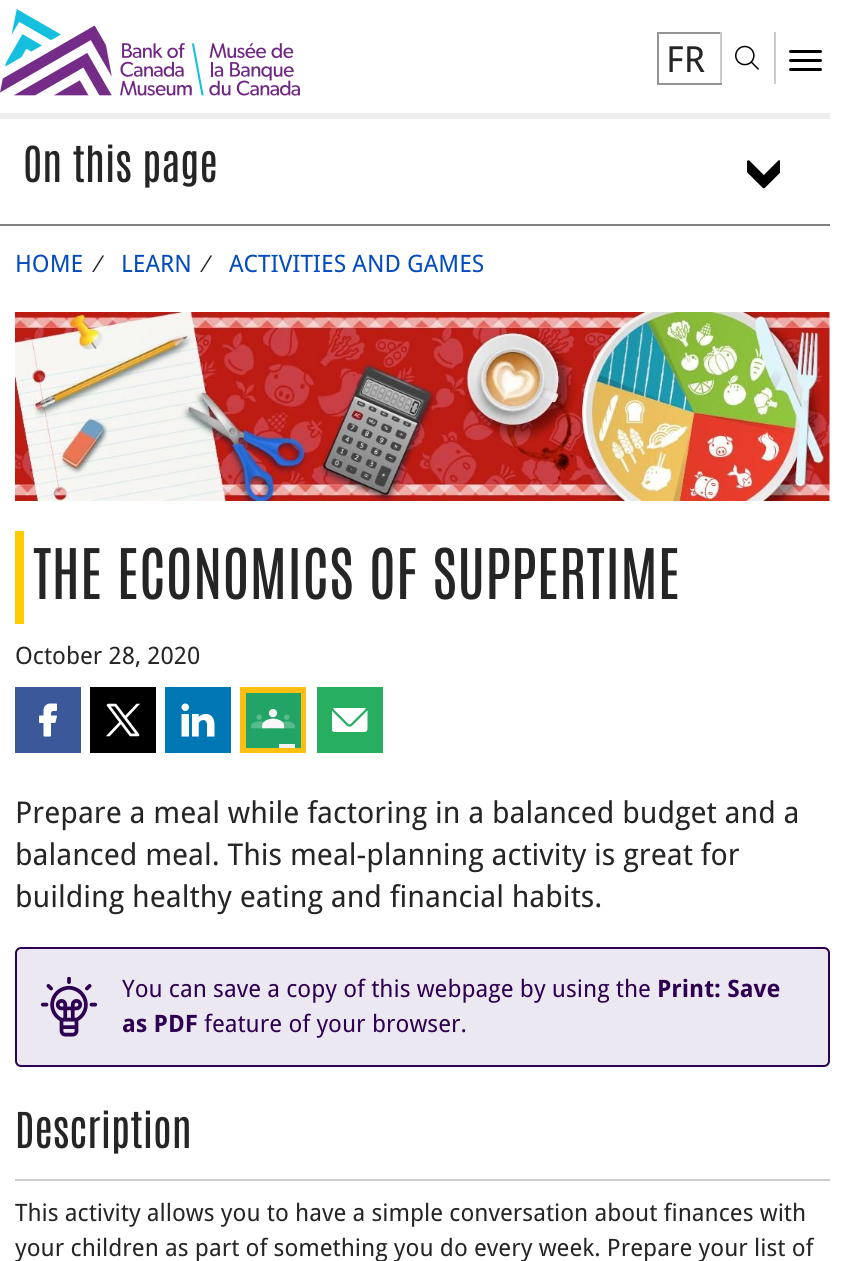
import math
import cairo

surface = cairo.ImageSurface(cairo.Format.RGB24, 844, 1261)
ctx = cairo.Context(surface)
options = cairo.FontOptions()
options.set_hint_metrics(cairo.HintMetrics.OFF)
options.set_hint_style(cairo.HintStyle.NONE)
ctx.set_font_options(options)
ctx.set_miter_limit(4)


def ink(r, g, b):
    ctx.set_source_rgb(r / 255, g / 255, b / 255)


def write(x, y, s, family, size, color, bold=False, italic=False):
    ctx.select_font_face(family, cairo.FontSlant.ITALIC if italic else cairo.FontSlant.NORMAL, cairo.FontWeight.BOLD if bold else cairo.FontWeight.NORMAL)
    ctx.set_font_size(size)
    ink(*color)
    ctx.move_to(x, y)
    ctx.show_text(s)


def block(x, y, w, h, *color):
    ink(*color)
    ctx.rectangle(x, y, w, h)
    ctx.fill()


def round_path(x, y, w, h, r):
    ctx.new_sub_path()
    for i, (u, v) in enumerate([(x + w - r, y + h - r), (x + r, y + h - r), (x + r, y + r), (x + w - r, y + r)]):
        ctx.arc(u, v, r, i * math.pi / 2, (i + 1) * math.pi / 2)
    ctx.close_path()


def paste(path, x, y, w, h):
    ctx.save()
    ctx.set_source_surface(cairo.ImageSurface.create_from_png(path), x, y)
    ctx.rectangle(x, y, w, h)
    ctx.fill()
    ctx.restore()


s1 = dict(family="Droid Sans", size=36, color=(38, 37, 37))
s2 = dict(family="Antonio", size=42, color=(38, 37, 37))
s3 = dict(family="Droid Sans", size=24, color=(3, 75, 191))
s4 = dict(family="Liberation Sans", size=24, color=(38, 37, 37))
s5 = dict(family="Antonio", size=59.25, color=(38, 37, 37))
s6 = dict(family="Droid Sans", size=24, color=(38, 37, 37))
s7 = dict(family="Droid Sans", size=30, color=(38, 37, 37))
s8 = dict(family="Droid Sans", size=24, color=(45, 0, 81))
s9 = dict(family="Droid Sans", size=24, color=(45, 0, 81), bold=True)

ink(255, 255, 255)
ctx.paint()
paste("pic1.png", 0, 9, 300, 87)
block(657, 32, 65, 2, 148, 148, 148)
block(720, 32, 2, 52, 204, 204, 204)
block(657, 83, 65, 2, 148, 148, 148)
block(657, 32, 2, 52, 148, 148, 148)
write(666, 72, "FR", **s1)
block(774, 32, 2, 52, 204, 204, 204)
paste("pic2.png", 735, 45, 24, 25)
ink(0, 0, 0)
round_path(789, 50, 33, 3, 1.5)
ctx.fill()
round_path(789, 59, 33, 3, 1.5)
ctx.fill()
round_path(789, 68, 33, 3, 1.5)
ctx.fill()
block(0, 113, 830, 6, 238, 238, 238)
block(0, 224, 830, 2, 128, 128, 128)
write(23, 182, "On this page", **s2)
paste("pic3.png", 747, 160, 33, 29)
write(15, 272, "HOME", **s3)
write(97, 272, "∕", **s4)
write(121, 272, "LEARN", **s3)
write(205, 272, "∕", **s4)
write(229, 272, "ACTIVITIES AND GAMES", **s3)
paste("pic4.png", 15, 312, 815, 189)
block(15, 531, 9, 93, 255, 203, 0)
write(33, 599, "THE ECONOMICS OF SUPPERTIME", **s5)
write(15, 664, "October 28, 2020", **s6)
block(15, 687, 66, 66, 59, 89, 152)
paste("pic5.png", 39, 703, 18, 34)
block(90, 687, 66, 66, 0, 0, 0)
paste("pic6.png", 106, 703, 35, 34)
block(165, 687, 66, 66, 0, 119, 181)
paste("pic7.png", 181, 703, 34, 34)
block(240, 687, 66, 66, 253, 191, 18)
paste("pic8.png", 246, 693, 55, 55)
block(317, 687, 66, 66, 39, 174, 96)
paste("pic9.png", 332, 708, 36, 24)
write(15, 823, "Prepare a meal while factoring in a balanced budget and a", **s7)
write(15, 865, "balanced meal. This meal-planning activity is great for", **s7)
write(15, 907, "building healthy eating and financial habits.", **s7)
ink(236, 232, 242)
round_path(16, 948, 813, 118, 5)
ctx.fill_preserve()
ink(45, 0, 81)
ctx.stroke()
paste("pic10.png", 40, 977, 58, 60)
write(122, 997, "You can save a copy of this webpage by using the", **s8)
write(657, 997, "Print: Save", **s9)
write(122, 1032, "as PDF", **s9)
write(204, 1032, "feature of your browser.", **s8)
block(15, 1179, 815, 2, 204, 204, 204)
write(15, 1148, "Description", **s2)
write(15, 1221, "This activity allows you to have a simple conversation about finances with", **s6)
write(15, 1256, "your children as part of something you do every week. Prepare your list of", **s6)
surface.write_to_png("screenshot.png")
